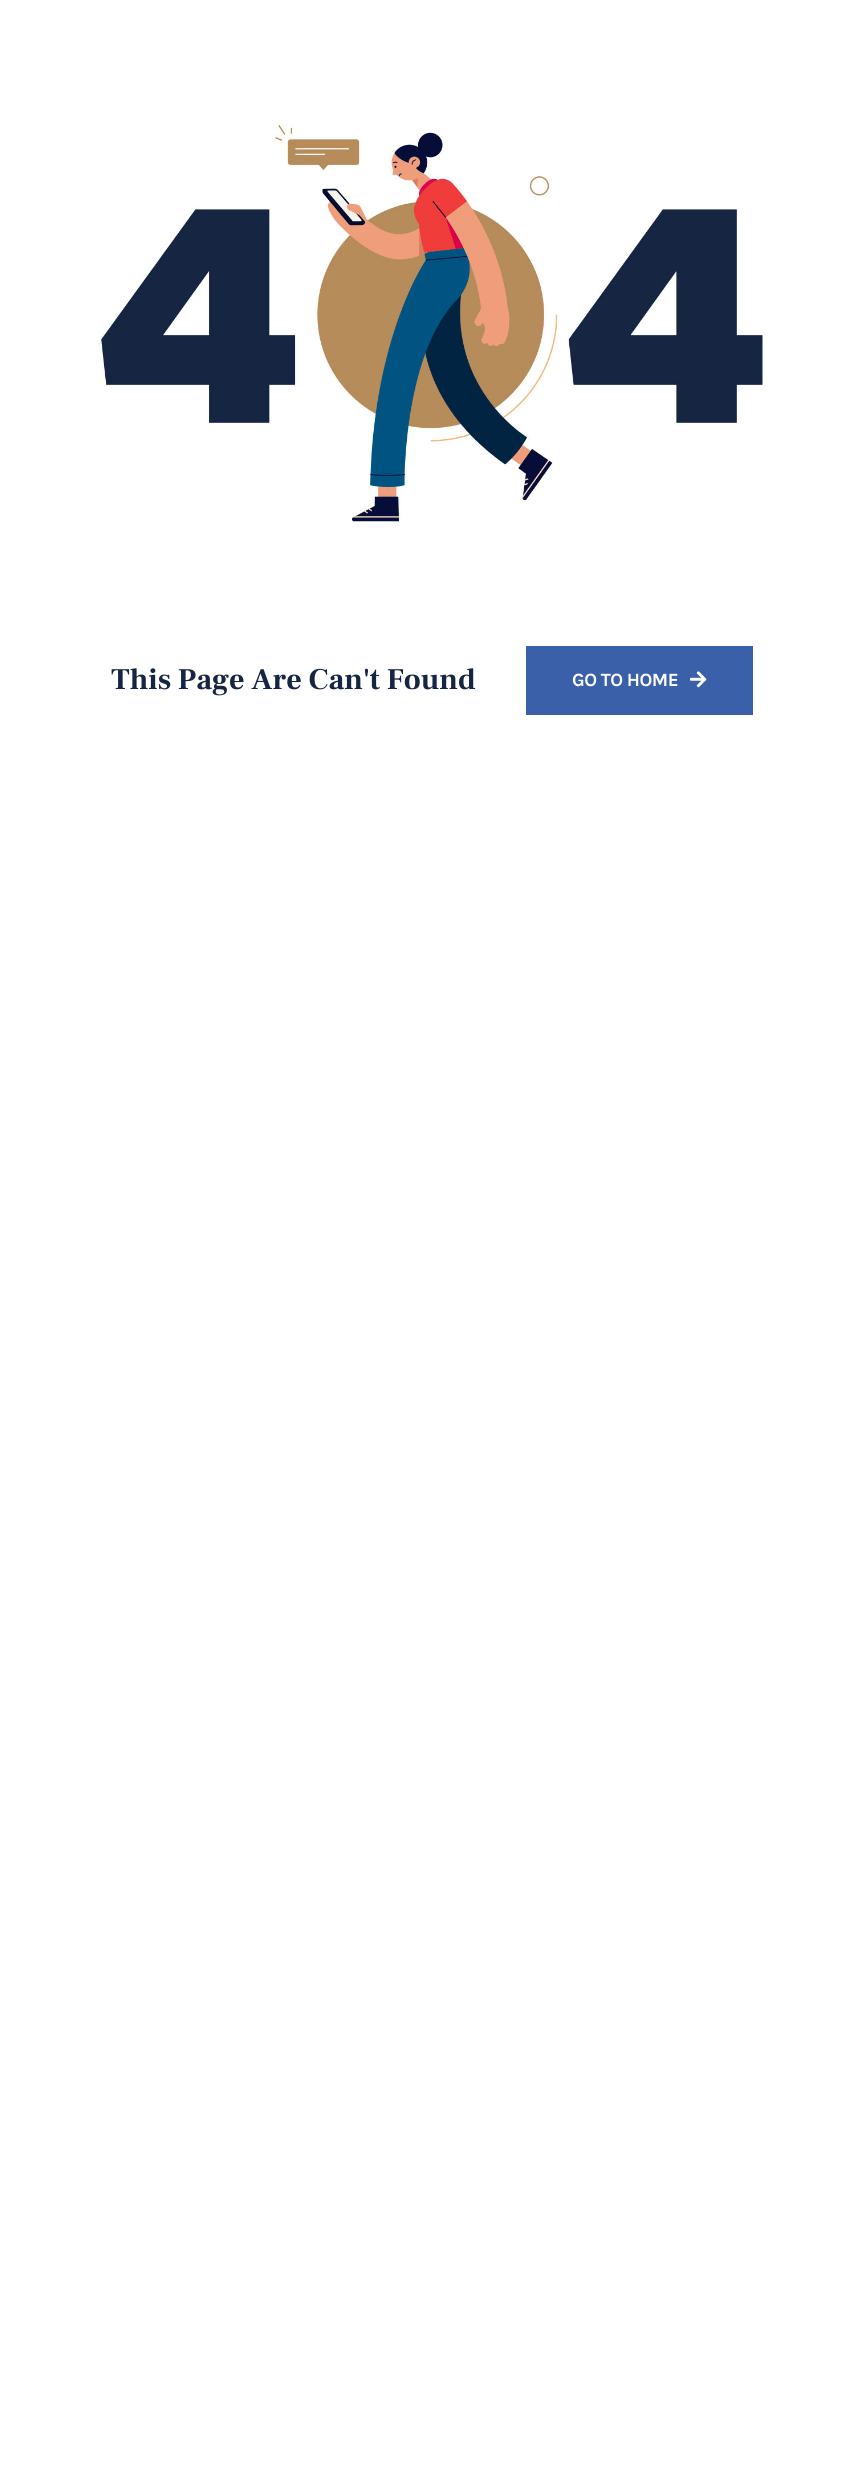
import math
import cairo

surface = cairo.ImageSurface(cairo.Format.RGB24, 863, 2481)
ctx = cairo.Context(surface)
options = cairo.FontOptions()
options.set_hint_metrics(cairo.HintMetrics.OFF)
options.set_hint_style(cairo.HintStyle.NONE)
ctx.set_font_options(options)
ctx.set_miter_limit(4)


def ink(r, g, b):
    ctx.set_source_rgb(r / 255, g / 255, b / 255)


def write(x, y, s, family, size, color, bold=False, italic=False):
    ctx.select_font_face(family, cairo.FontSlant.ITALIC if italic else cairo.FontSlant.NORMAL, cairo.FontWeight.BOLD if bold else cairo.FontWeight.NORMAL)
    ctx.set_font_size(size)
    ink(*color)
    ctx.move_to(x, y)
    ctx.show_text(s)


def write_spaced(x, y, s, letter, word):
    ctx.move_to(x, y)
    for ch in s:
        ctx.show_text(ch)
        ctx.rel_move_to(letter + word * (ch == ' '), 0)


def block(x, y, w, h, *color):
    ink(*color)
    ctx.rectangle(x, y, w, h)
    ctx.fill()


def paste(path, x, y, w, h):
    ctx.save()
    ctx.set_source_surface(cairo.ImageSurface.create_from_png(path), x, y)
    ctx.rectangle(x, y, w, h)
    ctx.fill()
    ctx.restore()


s1 = dict(family="Frank Ruhl Libre", size=30, color=(22, 37, 66), bold=True)

ink(255, 255, 255)
ctx.paint()
paste("pic1.png", 101, 125, 662, 397)
write(111, 689, "This Page Are Can't Found", **s1)
block(526, 646, 227, 69, 58, 96, 169)
ctx.select_font_face("Karla", cairo.FontSlant.NORMAL, cairo.FontWeight.BOLD)
ctx.set_font_size(18.75)
ink(255, 255, 255)
write_spaced(572, 686, "GO TO HOME", -0.5, 0)
paste("pic2.png", 690, 671, 17, 17)
surface.write_to_png("screenshot.png")
